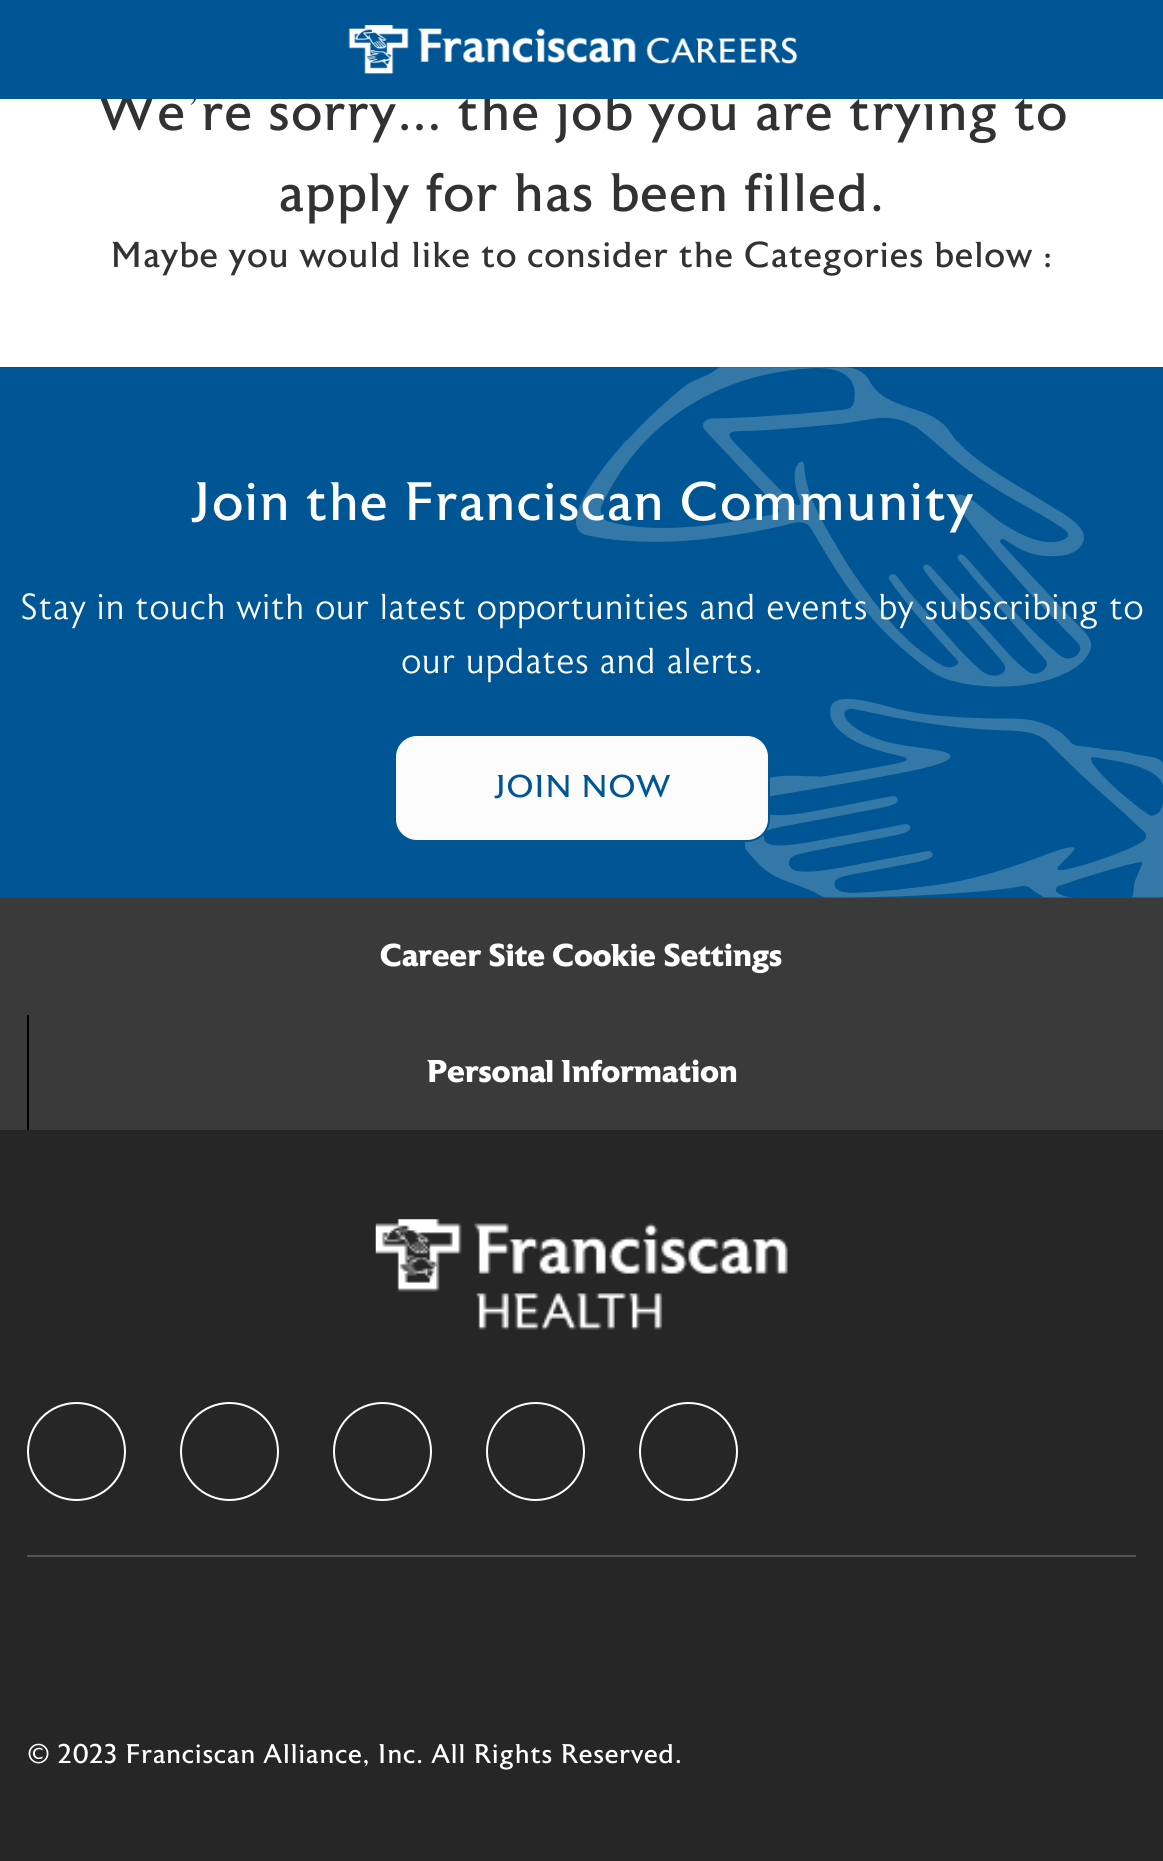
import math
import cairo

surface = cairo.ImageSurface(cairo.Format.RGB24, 1163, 1861)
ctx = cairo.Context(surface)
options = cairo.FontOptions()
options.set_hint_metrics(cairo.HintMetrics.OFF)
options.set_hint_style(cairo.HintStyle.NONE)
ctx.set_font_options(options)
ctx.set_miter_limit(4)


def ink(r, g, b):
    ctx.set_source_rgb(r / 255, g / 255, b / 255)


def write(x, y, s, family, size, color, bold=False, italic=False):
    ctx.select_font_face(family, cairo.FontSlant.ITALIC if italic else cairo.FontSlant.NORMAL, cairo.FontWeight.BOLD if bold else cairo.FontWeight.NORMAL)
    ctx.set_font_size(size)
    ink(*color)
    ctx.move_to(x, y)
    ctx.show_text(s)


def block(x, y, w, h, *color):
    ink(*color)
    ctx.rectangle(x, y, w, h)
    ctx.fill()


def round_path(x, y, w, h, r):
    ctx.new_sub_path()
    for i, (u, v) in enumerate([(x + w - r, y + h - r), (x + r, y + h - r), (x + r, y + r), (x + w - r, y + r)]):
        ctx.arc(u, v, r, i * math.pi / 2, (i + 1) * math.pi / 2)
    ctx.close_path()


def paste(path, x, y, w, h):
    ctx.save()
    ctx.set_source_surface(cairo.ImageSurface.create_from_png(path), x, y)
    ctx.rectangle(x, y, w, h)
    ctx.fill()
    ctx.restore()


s1 = dict(family="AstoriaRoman", size=54, color=(50, 50, 50))
s2 = dict(family="AstoriaRoman", size=36, color=(50, 50, 50))
s3 = dict(family="AstoriaRoman", size=54, color=(255, 255, 255))
s4 = dict(family="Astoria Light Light", size=36, color=(255, 255, 255))
s5 = dict(family="AstoriaRoman", size=31.5, color=(0, 86, 149))
s6 = dict(family="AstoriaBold", size=31.5, color=(255, 255, 255), bold=True)
s7 = dict(family="AstoriaRoman", size=27, color=(255, 255, 255))

ink(255, 255, 255)
ctx.paint()
write(96, 130, "We're sorry… the job you are trying to", **s1)
block(0, 0, 1163, 99, 0, 86, 149)
paste("pic1.png", 348, 25, 450, 49)
write(278, 211, "apply for has been filled.", **s1)
write(110, 267, "Maybe you would like to consider the Categories below :", **s2)
block(0, 367, 1163, 531, 0, 86, 149)
paste("pic2.png", 576, 367, 587, 531)
write(189, 520, "Join the Franciscan Community", **s3)
write(20, 619, "Stay in touch with our latest opportunities and events by subscribing to", **s4)
write(401, 673, "our updates and alerts.", **s4)
ink(252, 252, 252)
round_path(395, 735, 374, 106, 22)
ctx.fill_preserve()
ink(0, 86, 149)
ctx.stroke()
write(493, 797, "JOIN NOW", **s5)
block(0, 1130, 1163, 731, 38, 38, 38)
block(0, 898, 1163, 232, 58, 58, 58)
write(380, 966, "Career Site Cookie Settings", **s6)
block(27, 1015, 2, 115, 0, 0, 0)
write(427, 1082, "Personal Information", **s6)
block(27, 1555, 1109, 2, 85, 85, 85)
paste("pic3.png", 375, 1219, 413, 111)
ctx.arc(76.5, 1451.5, 48.5, 0, 2 * math.pi)
ink(255, 255, 255)
ctx.stroke()
ctx.arc(229.5, 1451.5, 48.5, 0, 2 * math.pi)
ctx.stroke()
ctx.arc(382.5, 1451.5, 48.5, 0, 2 * math.pi)
ctx.stroke()
ctx.arc(535.5, 1451.5, 48.5, 0, 2 * math.pi)
ctx.stroke()
ctx.arc(688.5, 1451.5, 48.5, 0, 2 * math.pi)
ctx.stroke()
write(27, 1763, "© 2023 Franciscan Alliance, Inc. All Rights Reserved.", **s7)
surface.write_to_png("screenshot.png")
